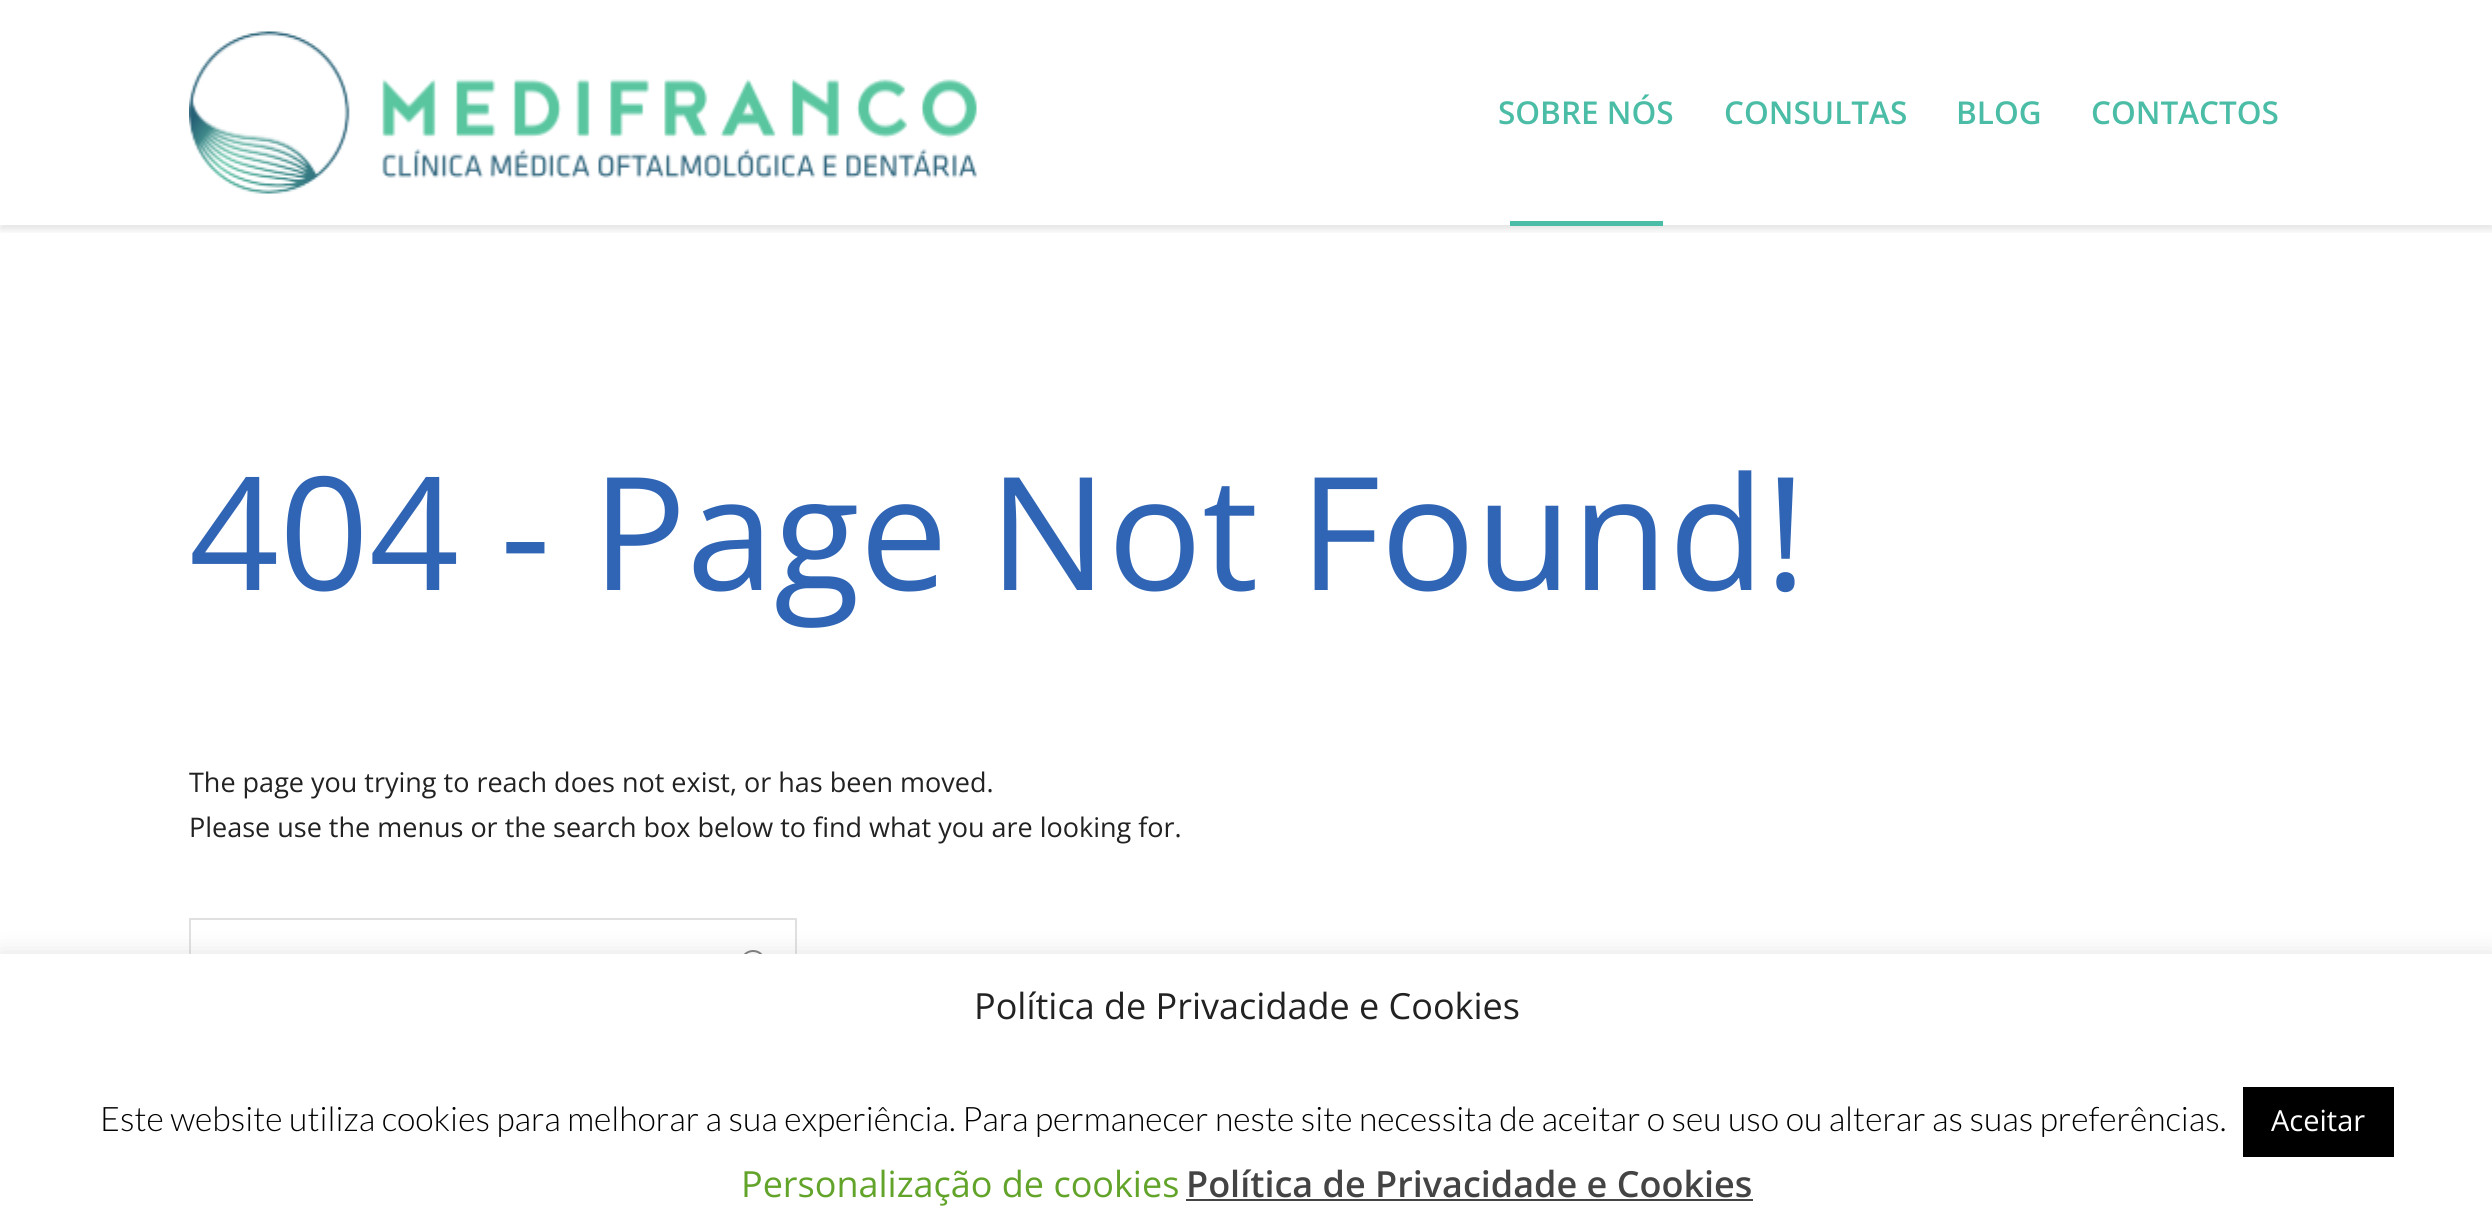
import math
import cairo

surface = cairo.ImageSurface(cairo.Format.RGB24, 2492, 1231)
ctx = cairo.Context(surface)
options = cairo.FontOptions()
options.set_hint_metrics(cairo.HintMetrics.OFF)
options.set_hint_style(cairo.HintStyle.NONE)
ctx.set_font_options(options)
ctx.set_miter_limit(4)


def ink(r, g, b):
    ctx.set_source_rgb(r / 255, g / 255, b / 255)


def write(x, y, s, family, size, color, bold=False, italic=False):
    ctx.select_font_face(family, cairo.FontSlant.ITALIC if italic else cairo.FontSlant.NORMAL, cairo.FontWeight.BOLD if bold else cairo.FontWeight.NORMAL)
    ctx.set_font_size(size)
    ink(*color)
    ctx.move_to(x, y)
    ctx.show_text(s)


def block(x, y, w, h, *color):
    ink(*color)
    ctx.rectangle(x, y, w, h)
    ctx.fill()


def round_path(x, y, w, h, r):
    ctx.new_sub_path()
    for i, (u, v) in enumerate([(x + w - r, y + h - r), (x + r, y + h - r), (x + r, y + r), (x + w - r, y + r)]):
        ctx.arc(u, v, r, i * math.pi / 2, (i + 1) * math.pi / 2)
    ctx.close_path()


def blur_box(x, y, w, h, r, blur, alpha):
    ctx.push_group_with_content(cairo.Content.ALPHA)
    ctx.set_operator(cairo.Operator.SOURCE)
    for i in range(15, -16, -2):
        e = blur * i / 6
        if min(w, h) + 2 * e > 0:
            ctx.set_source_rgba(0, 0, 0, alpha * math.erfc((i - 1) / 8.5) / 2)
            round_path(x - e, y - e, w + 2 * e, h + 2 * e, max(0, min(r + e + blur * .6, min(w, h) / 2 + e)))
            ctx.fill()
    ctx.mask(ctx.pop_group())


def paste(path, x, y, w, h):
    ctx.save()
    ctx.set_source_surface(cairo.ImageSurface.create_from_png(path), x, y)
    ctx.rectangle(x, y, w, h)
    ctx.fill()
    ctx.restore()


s1 = dict(family="Open Sans SemiBold", size=31.5, color=(75, 189, 166))
s2 = dict(family="Open Sans", size=157.5, color=(48, 101, 181))
s3 = dict(family="Open Sans", size=27, color=(34, 34, 34))
s4 = dict(family="Open Sans", size=36, color=(34, 34, 34))
s5 = dict(family="Lato Light", size=33.75, color=(0, 0, 0))
s6 = dict(family="Open Sans", size=29, color=(255, 255, 255))
s7 = dict(family="Open Sans", size=36, color=(98, 163, 41))
s8 = dict(family="Open Sans SemiBold", size=36, color=(68, 68, 68))

ink(255, 255, 255)
ctx.paint()
ctx.save()
ctx.rectangle(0, 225, 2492, 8)
ctx.clip()
ink(0, 0, 0)
blur_box(0, 5, 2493, 225, 0, 3.5, 0.1)
ctx.restore()
paste("pic1.png", 189, 31, 788, 163)
write(1498, 124, "SOBRE NÓS", **s1)
write(1724, 124, "CONSULTAS", **s1)
write(1956, 124, "BLOG", **s1)
write(2091, 124, "CONTACTOS", **s1)
block(1510, 221, 153, 5, 75, 189, 166)
write(189, 590, "404 - Page Not Found!", **s2)
write(189, 792, "The page you trying to reach does not exist, or has been moved.", **s3)
write(189, 837, "Please use the menus or the search box below to find what you are looking for.", **s3)
ctx.rectangle(190, 919, 606, 97)
ink(224, 224, 224)
ctx.stroke()
paste("pic2.png", 744, 950, 19, 4)
ink(172, 171, 171)
blur_box(0, 952, 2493, 279, 0, 11, 0.3)
block(0, 954, 2492, 277, 255, 255, 255)
write(974, 1019, "Política de Privacidade e Cookies", **s4)
write(100, 1131, "Este website utiliza cookies para melhorar a sua experiência. Para permanecer neste site necessita de aceitar o seu uso ou alterar as suas preferências.", **s5)
block(2243, 1087, 151, 70, 0, 0, 0)
write(2271, 1131, "Aceitar", **s6)
write(741, 1197, "Personalização de cookies", **s7)
write(1186, 1197, "Política de Privacidade e Cookies", **s8)
block(1186, 1199, 567, 2, 68, 68, 68)
surface.write_to_png("screenshot.png")
